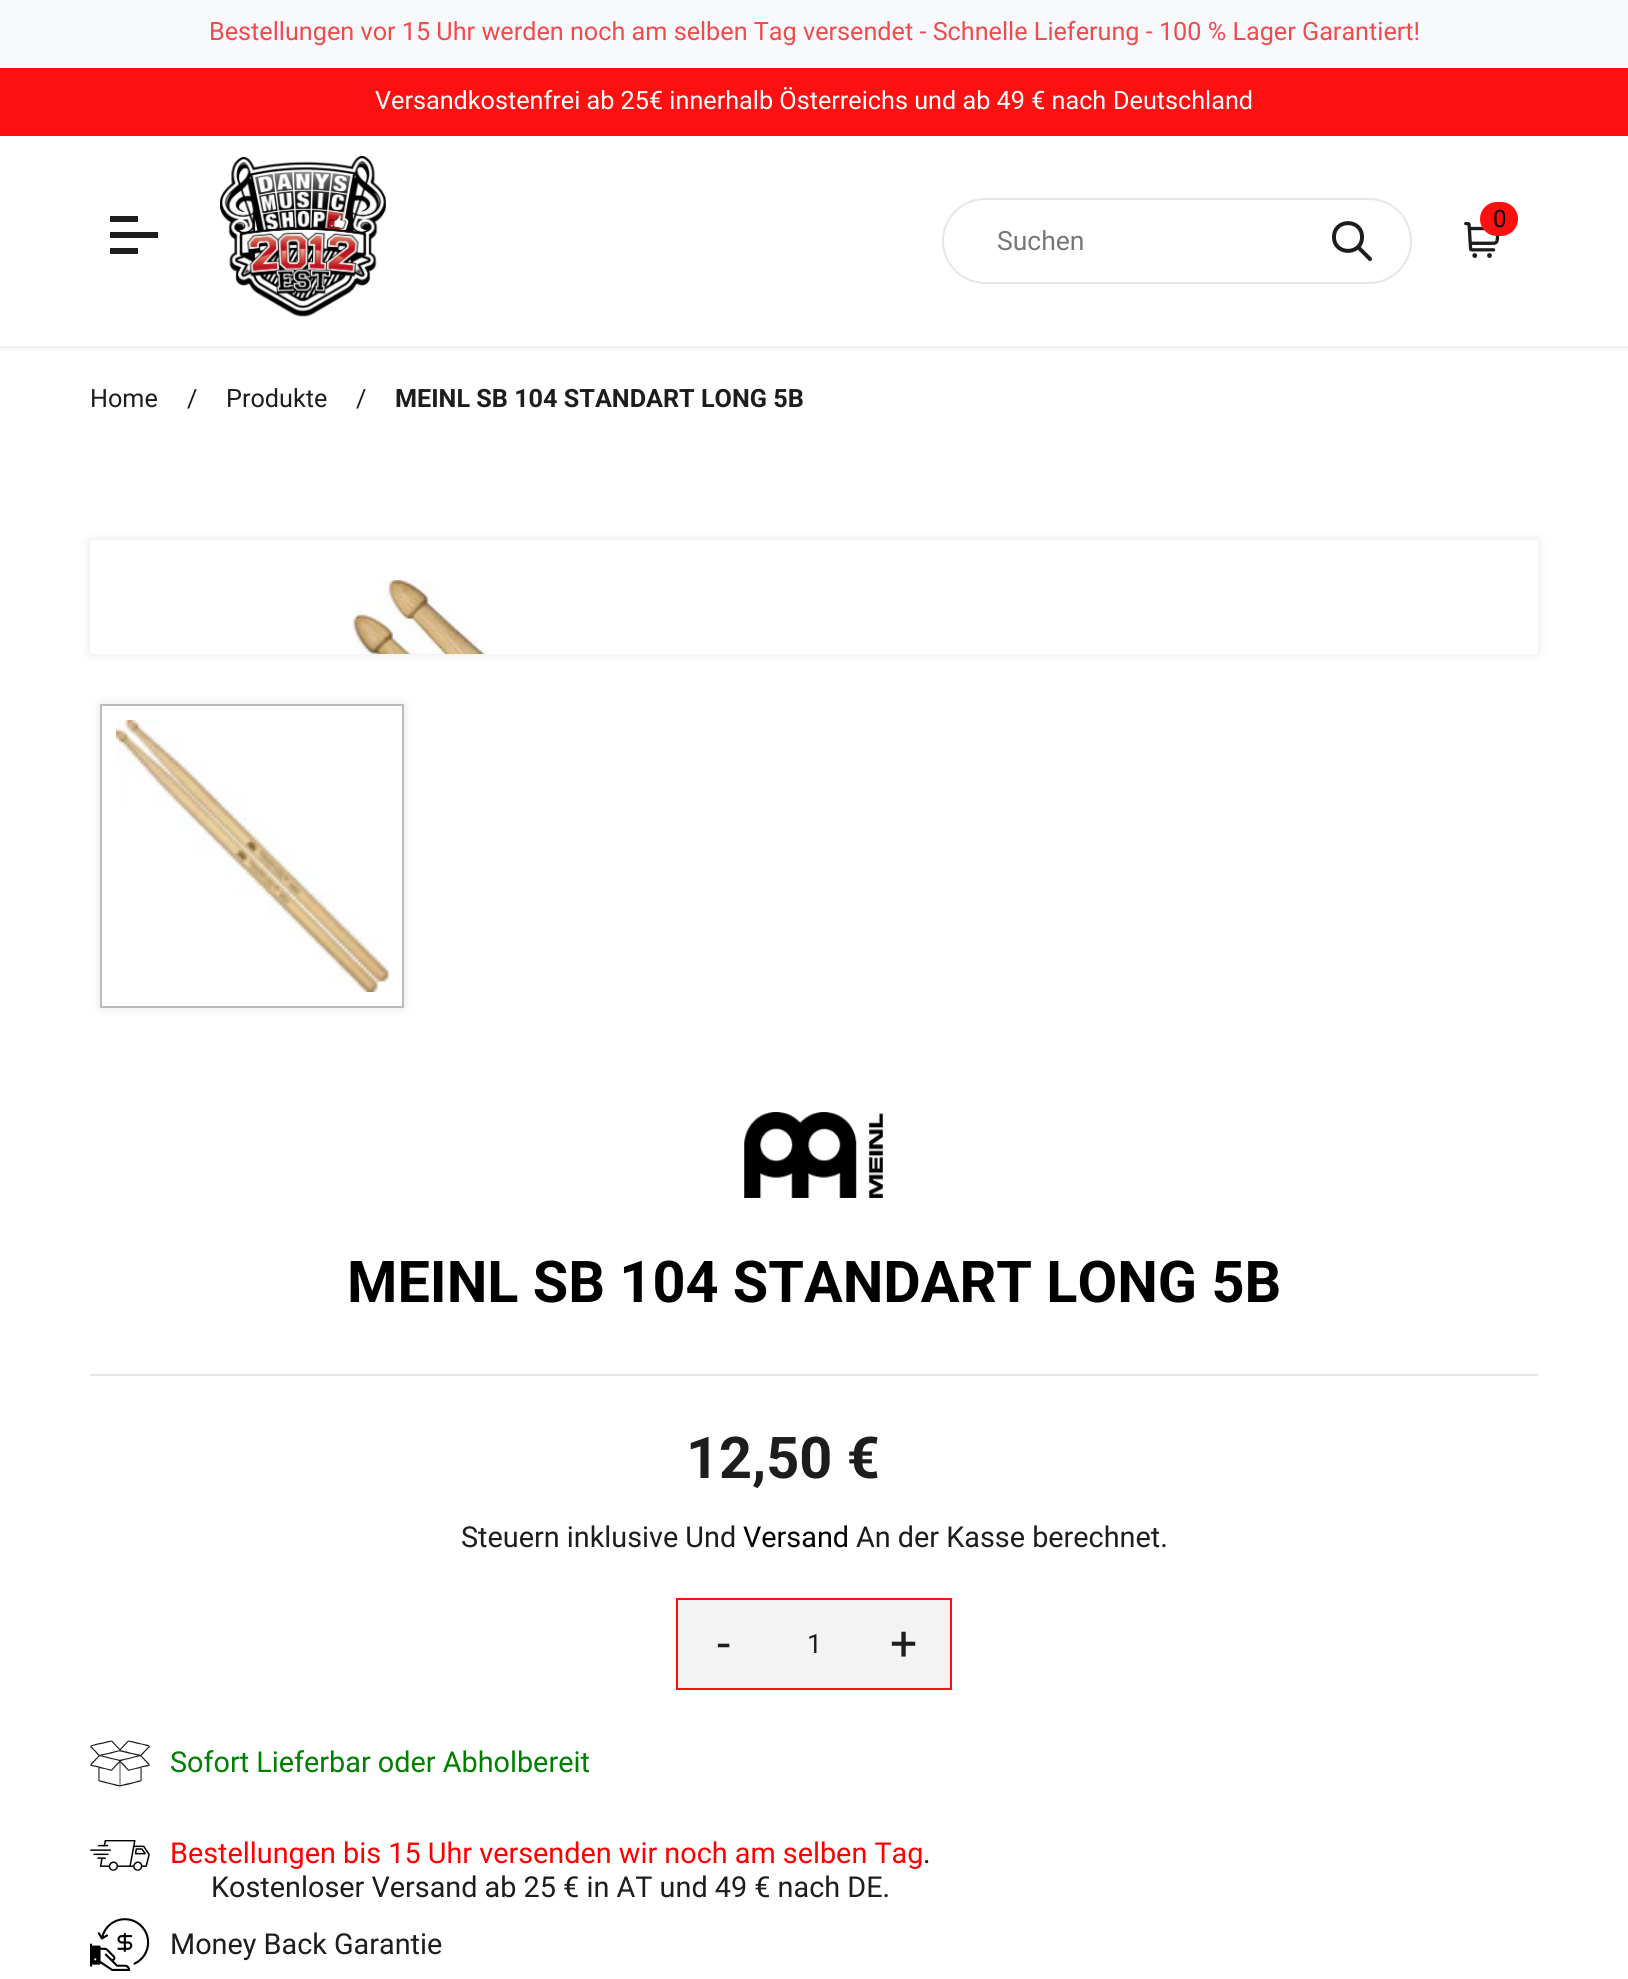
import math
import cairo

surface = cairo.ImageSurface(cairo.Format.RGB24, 1628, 1979)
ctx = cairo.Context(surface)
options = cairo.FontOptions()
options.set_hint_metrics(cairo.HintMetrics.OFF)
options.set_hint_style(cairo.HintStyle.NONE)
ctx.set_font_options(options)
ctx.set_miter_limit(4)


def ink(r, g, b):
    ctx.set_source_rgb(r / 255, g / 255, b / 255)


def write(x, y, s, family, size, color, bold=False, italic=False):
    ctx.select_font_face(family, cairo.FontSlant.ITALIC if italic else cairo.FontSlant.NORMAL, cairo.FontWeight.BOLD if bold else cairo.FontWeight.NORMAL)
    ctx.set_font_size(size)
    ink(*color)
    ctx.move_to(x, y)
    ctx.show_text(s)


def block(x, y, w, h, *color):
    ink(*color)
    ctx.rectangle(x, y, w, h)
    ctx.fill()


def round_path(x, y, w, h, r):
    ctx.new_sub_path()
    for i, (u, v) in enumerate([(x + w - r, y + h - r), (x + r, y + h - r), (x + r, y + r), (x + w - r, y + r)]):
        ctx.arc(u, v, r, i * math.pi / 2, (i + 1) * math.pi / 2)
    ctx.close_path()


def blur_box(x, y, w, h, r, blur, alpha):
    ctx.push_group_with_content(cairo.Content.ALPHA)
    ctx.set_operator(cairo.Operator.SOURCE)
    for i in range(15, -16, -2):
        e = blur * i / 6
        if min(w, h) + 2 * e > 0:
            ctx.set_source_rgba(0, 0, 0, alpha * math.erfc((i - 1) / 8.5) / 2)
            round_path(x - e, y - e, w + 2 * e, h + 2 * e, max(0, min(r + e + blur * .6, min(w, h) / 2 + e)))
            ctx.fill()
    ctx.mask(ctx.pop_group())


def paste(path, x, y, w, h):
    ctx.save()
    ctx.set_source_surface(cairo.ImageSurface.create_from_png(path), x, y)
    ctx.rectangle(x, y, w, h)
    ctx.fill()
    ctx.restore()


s1 = dict(family="Roboto", size=25.2, color=(239, 75, 75))
s2 = dict(family="Roboto", size=25.2, color=(255, 255, 255))
s3 = dict(family="Roboto", size=26.5, color=(119, 119, 120))
s4 = dict(family="Roboto", size=24, color=(0, 0, 0))
s5 = dict(family="Roboto", size=25.2, color=(29, 29, 30))
s6 = dict(family="Roboto", size=25.2, color=(29, 29, 30), bold=True)
s7 = dict(family="Roboto", size=57.6, color=(0, 0, 0), bold=True)
s8 = dict(family="Roboto", size=57.6, color=(29, 29, 30), bold=True)
s9 = dict(family="Roboto", size=28.8, color=(29, 29, 30))
s10 = dict(family="Roboto", size=28.8, color=(0, 0, 0))
s11 = dict(family="Roboto", size=48, color=(29, 29, 30))
s12 = dict(family="Roboto", size=26.5, color=(29, 29, 30))
s13 = dict(family="Roboto", size=28.8, color=(0, 128, 0))
s14 = dict(family="Roboto", size=28.8, color=(255, 0, 0))

ink(255, 255, 255)
ctx.paint()
block(0, 0, 1628, 66, 248, 249, 253)
write(209, 40, "Bestellungen vor 15 Uhr werden noch am selben Tag versendet - Schnelle Lieferung - 100 % Lager Garantiert!", **s1)
ink(0, 0, 0)
blur_box(0, 68, 1628, 70, 0, 3, 0.1)
block(0, 68, 1628, 68, 255, 16, 16)
block(0, 66, 1628, 2, 255, 255, 255)
write(375, 109, "Versandkostenfrei ab 25€ innerhalb Österreichs und ab 49 € nach", **s2)
write(1113, 109, "Deutschland", **s2)
ink(0, 0, 0)
blur_box(0, 138, 1628, 210, 0, 3, 0.1)
block(0, 136, 1628, 210, 255, 255, 255)
block(110, 216, 28, 6, 29, 29, 30)
block(110, 232, 48, 6, 29, 29, 30)
block(110, 248, 28, 6, 29, 29, 30)
paste("pic1.png", 220, 156, 166, 161)
round_path(943, 199, 468, 84, 42)
ink(230, 230, 230)
ctx.stroke()
write(997, 250, "Suchen", **s3)
ctx.new_path()
ctx.move_to(1370, 259)
ctx.line_to(1358, 247)
ctx.move_to(1362, 237)
ctx.curve_to(1362, 255.5, 1334, 255.5, 1334, 237)
ctx.curve_to(1334, 218.5, 1362, 218.5, 1362, 237)
ctx.close_path()
ink(29, 29, 30)
ctx.set_line_width(4)
ctx.set_line_cap(cairo.LineCap.ROUND)
ctx.set_line_join(cairo.LineJoin.ROUND)
ctx.stroke()
paste("pic2.png", 1464, 222, 36, 36)
ink(255, 16, 16)
round_path(1480, 202, 38, 34, 17)
ctx.fill()
write(1493, 227, "0", **s4)
write(90, 407, "Home", **s5)
write(187, 407, "/", **s5)
write(226, 407, "Produkte", **s5)
write(356, 407, "/", **s5)
write(395, 407, "MEINL SB 104 STANDART LONG 5B", **s6)
ctx.save()
ctx.set_fill_rule(cairo.FillRule.EVEN_ODD)
ctx.new_path()
ctx.move_to(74, 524)
ctx.line_to(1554, 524)
ctx.line_to(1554, 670)
ctx.line_to(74, 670)
ctx.close_path()
ctx.move_to(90, 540)
ctx.line_to(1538, 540)
ctx.line_to(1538, 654)
ctx.line_to(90, 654)
ctx.close_path()
ctx.clip()
ink(230, 230, 230)
blur_box(90, 540, 1448, 114, 0, 5, 1)
ctx.restore()
paste("pic3.png", 352, 580, 134, 74)
ctx.save()
ctx.set_fill_rule(cairo.FillRule.EVEN_ODD)
ctx.new_path()
ctx.move_to(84, 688)
ctx.line_to(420, 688)
ctx.line_to(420, 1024)
ctx.line_to(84, 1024)
ctx.close_path()
ctx.move_to(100, 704)
ctx.line_to(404, 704)
ctx.line_to(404, 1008)
ctx.line_to(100, 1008)
ctx.close_path()
ctx.clip()
ink(230, 230, 230)
blur_box(100, 704, 304, 304, 0, 5, 1)
ctx.restore()
ctx.rectangle(101, 705, 302, 302)
ink(187, 187, 188)
ctx.set_line_width(2)
ctx.set_line_cap(cairo.LineCap.BUTT)
ctx.set_line_join(cairo.LineJoin.MITER)
ctx.stroke()
paste("pic4.png", 116, 720, 273, 272)
paste("pic5.png", 744, 1112, 139, 86)
write(347, 1302, "MEINL SB 104 STANDART LONG 5B", **s7)
block(90, 1374, 1448, 2, 230, 230, 230)
write(686, 1478, "12,50 €", **s8)
write(461, 1547, "Steuern inklusive Und", **s9)
write(743, 1547, "Versand", **s10)
write(856, 1547, "An der Kasse berechnet.", **s9)
ink(243, 243, 243)
ctx.rectangle(677, 1599, 274, 90)
ctx.fill_preserve()
ink(250, 16, 16)
ctx.stroke()
write(717, 1660, "-", **s11)
write(807, 1653, "1", **s12)
write(890, 1660, "+", **s11)
paste("pic6.png", 90, 1740, 60, 47)
write(170, 1772, "Sofort Lieferbar oder Abholbereit", **s13)
paste("pic7.png", 90, 1840, 60, 31)
write(170, 1863, "Bestellungen bis 15 Uhr versenden wir noch am selben Tag", **s14)
write(923, 1863, ".", **s9)
write(211, 1897, "Kostenloser Versand ab 25 € in AT und 49 € nach DE.", **s9)
paste("pic8.png", 90, 1918, 60, 53)
write(170, 1954, "Money Back Garantie", **s9)
surface.write_to_png("screenshot.png")
